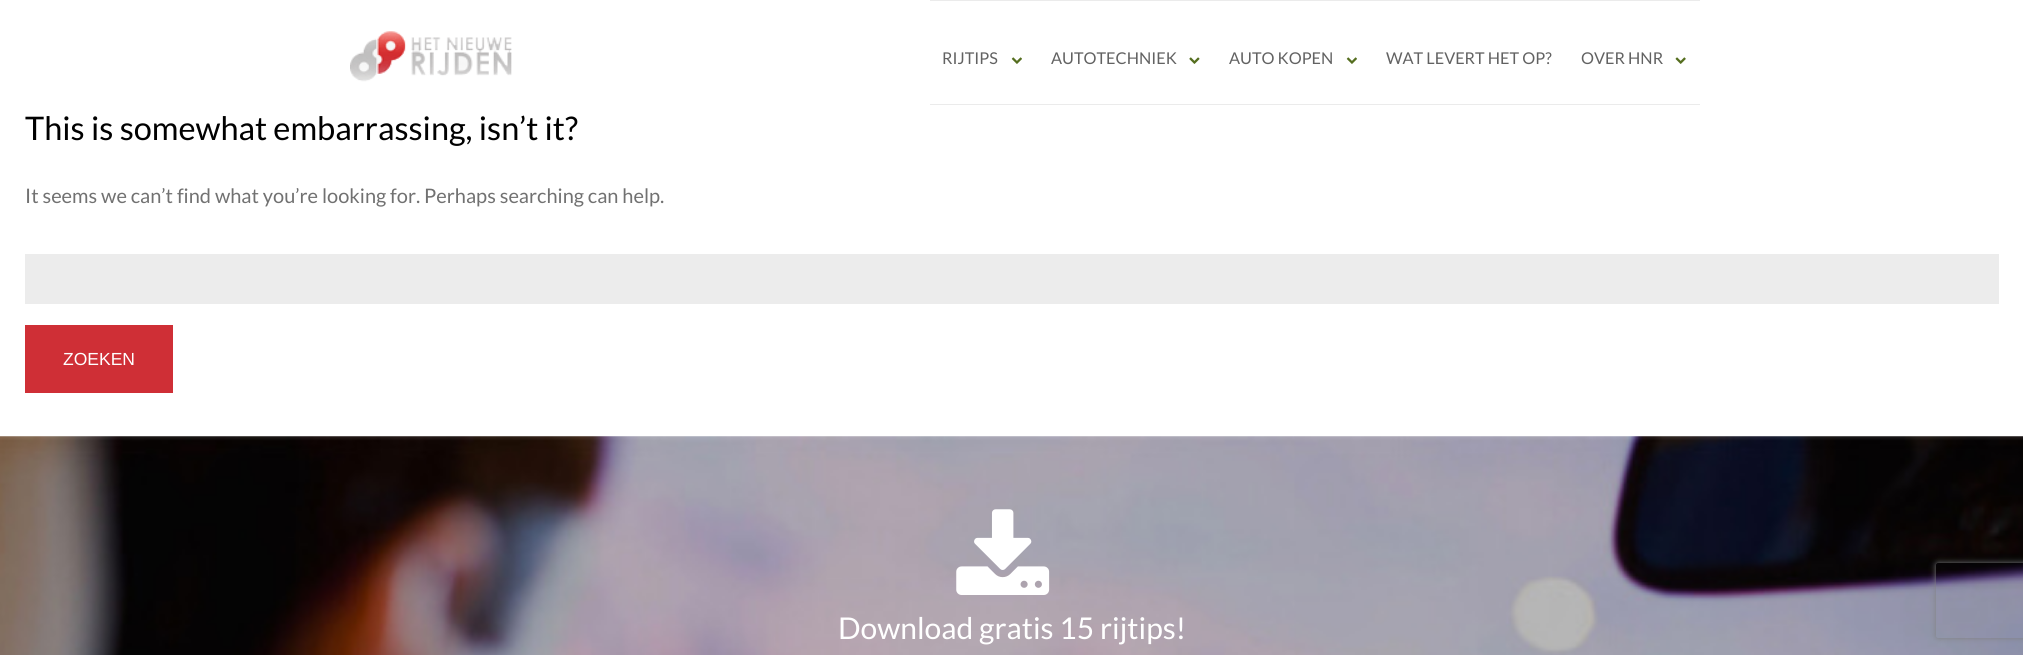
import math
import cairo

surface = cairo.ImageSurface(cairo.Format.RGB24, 2023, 655)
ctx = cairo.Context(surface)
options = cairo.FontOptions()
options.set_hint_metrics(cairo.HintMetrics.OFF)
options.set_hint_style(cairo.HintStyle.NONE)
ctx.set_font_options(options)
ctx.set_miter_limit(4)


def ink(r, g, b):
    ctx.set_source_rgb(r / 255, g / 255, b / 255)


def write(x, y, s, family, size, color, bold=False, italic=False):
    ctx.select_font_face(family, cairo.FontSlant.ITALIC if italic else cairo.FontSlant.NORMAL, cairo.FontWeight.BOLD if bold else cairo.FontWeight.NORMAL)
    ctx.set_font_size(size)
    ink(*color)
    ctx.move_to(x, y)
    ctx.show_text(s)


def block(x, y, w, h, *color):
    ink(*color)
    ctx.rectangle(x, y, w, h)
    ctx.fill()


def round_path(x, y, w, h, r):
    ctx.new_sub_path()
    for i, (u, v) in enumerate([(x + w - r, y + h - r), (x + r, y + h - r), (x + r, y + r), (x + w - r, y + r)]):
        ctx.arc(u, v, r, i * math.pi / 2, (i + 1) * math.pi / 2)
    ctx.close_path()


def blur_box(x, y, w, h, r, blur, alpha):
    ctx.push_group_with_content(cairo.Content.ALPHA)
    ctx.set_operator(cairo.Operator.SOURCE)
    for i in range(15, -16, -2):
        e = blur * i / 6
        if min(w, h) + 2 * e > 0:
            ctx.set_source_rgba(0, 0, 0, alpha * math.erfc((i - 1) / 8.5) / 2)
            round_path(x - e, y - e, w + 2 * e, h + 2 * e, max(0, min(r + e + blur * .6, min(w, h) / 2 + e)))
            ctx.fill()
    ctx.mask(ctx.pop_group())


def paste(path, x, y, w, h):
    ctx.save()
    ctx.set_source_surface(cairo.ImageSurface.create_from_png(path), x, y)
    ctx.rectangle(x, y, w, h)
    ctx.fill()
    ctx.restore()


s1 = dict(family="Lato", size=16.25, color=(98, 98, 98))
s2 = dict(family="Lato", size=32.5, color=(0, 0, 0))
s3 = dict(family="Lato", size=20, color=(113, 113, 113))
s4 = dict(family="Liberation Sans", size=17.5, color=(255, 255, 255))
s5 = dict(family="Lato", size=30, color=(255, 255, 255))

ink(255, 255, 255)
ctx.paint()
paste("pic1.png", 350, 31, 162, 51)
block(930, 0, 770, 1, 235, 235, 235)
block(930, 104, 770, 1, 235, 235, 235)
write(942, 64, "RIJTIPS", **s1)
paste("pic2.png", 1011, 57, 11, 7)
write(1051, 64, "AUTOTECHNIEK", **s1)
paste("pic3.png", 1189, 57, 11, 7)
write(1229, 64, "AUTO KOPEN", **s1)
paste("pic2.png", 1346, 57, 11, 7)
write(1386, 64, "WAT LEVERT HET OP?", **s1)
write(1581, 64, "OVER HNR", **s1)
paste("pic4.png", 1675, 57, 11, 7)
write(25, 140, "This is somewhat embarrassing, isn’t it?", **s2)
write(25, 203, "It seems we can’t find what you’re looking for. Perhaps searching can help.", **s3)
block(25, 254, 1974, 50, 236, 236, 236)
block(25, 325, 148, 68, 207, 47, 54)
write(63, 365, "ZOEKEN", **s4)
paste("pic5.png", 0, 436, 2023, 219)
paste("pic6.png", 956, 509, 94, 86)
write(838, 639, "Download gratis 15 rijtips!", **s5)
ctx.save()
ctx.set_fill_rule(cairo.FillRule.EVEN_ODD)
ctx.new_path()
ctx.move_to(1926, 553)
ctx.line_to(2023, 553)
ctx.line_to(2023, 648)
ctx.line_to(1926, 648)
ctx.close_path()
ctx.move_to(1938.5, 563)
ctx.line_to(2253.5, 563)
ctx.curve_to(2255, 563, 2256, 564, 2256, 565.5)
ctx.line_to(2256, 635.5)
ctx.curve_to(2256, 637, 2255, 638, 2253.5, 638)
ctx.line_to(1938.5, 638)
ctx.curve_to(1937, 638, 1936, 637, 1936, 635.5)
ctx.line_to(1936, 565.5)
ctx.curve_to(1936, 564, 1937, 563, 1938.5, 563)
ctx.close_path()
ctx.clip()
ink(128, 128, 128)
blur_box(1936, 563, 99, 75, 2.5, 3, 1)
ctx.restore()
surface.write_to_png("screenshot.png")
